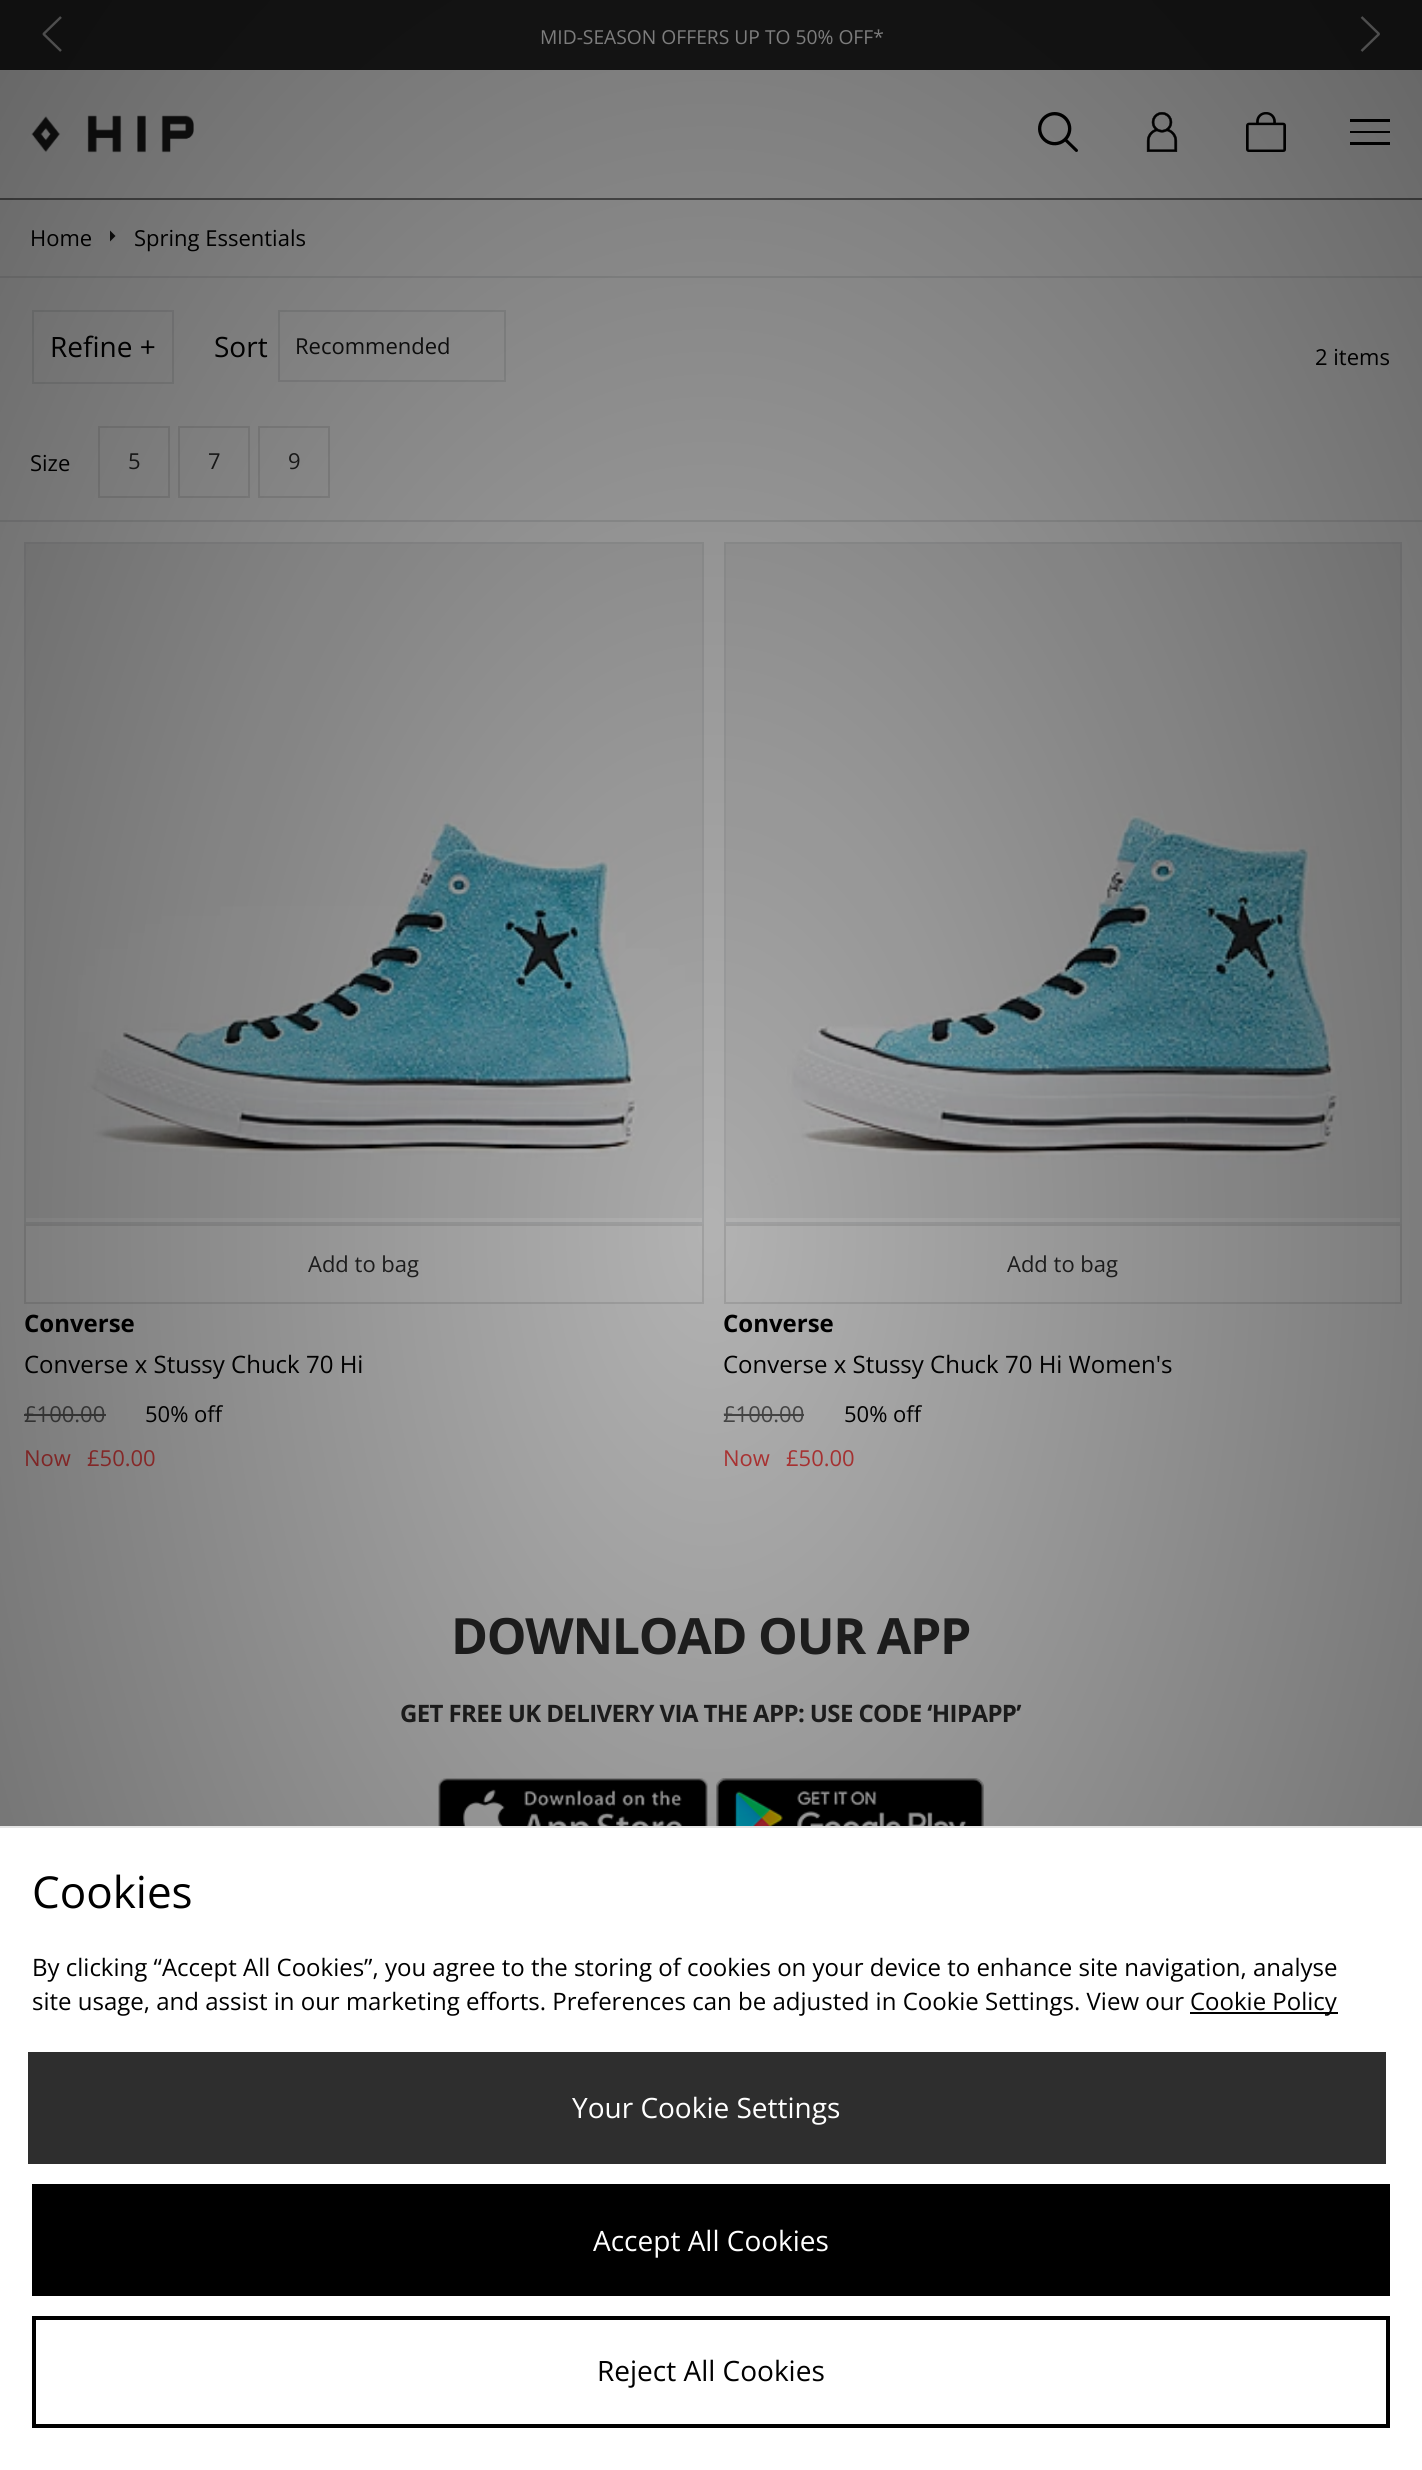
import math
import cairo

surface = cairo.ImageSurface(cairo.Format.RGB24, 1422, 2470)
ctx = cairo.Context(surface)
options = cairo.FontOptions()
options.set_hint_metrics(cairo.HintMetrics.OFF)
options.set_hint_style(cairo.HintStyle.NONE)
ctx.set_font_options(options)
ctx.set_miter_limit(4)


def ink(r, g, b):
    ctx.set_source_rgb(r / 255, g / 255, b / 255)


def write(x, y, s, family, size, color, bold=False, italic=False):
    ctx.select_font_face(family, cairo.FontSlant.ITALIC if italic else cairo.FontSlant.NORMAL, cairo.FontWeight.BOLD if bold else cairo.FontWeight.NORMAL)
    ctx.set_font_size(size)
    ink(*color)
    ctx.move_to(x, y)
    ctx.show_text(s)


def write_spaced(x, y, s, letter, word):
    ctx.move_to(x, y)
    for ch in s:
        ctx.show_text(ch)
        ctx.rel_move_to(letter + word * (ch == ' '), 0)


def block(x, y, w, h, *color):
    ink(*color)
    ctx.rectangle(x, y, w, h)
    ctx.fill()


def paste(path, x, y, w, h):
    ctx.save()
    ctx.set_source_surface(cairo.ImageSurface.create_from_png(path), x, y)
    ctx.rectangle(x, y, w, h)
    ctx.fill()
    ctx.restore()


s1 = dict(family="Open Sans", size=19.25, color=(255, 255, 255))
s2 = dict(family="Open Sans", size=22, color=(0, 0, 0))
s3 = dict(family="Open Sans", size=28, color=(0, 0, 0))
s4 = dict(family="Open Sans", size=22, color=(26, 26, 26))
s5 = dict(family="Open Sans", size=22, color=(46, 46, 46))
s6 = dict(family="Open Sans", size=24, color=(0, 0, 0), bold=True)
s7 = dict(family="Open Sans", size=24, color=(0, 0, 0))
s8 = dict(family="Open Sans", size=22, color=(102, 102, 102))
s9 = dict(family="Open Sans", size=22, color=(255, 76, 76))
s10 = dict(family="Open Sans", size=44, color=(0, 0, 0))
s11 = dict(family="Open Sans", size=28, color=(255, 255, 255))

ink(255, 255, 255)
ctx.paint()
block(0, 0, 1422, 70, 39, 39, 39)
ctx.new_path()
ctx.move_to(61, 17)
ctx.line_to(43.5, 34)
ctx.line_to(61, 51)
ink(190, 190, 190)
ctx.set_line_width(2.4)
ctx.set_line_join(cairo.LineJoin.BEVEL)
ctx.stroke()
ctx.new_path()
ctx.move_to(1361.5, 51)
ctx.line_to(1379, 34)
ctx.line_to(1361.5, 17)
ctx.stroke()
write(540, 44, "MID-SEASON OFFERS UP TO 50% OFF*", **s1)
block(0, 198, 1422, 2, 128, 128, 128)
paste("pic1.png", 31, 115, 163, 38)
paste("pic2.png", 1038, 112, 40, 40)
paste("pic3.png", 1146, 112, 32, 40)
paste("pic4.png", 1246, 112, 40, 40)
ink(0, 0, 0)
ctx.new_path()
ctx.move_to(1390, 142)
ctx.line_to(1390, 145)
ctx.line_to(1350, 145)
ctx.line_to(1350, 142)
ctx.close_path()
ctx.move_to(1390, 131)
ctx.line_to(1390, 133)
ctx.line_to(1350, 133)
ctx.line_to(1350, 131)
ctx.close_path()
ctx.move_to(1390, 119)
ctx.line_to(1390, 122)
ctx.line_to(1350, 122)
ctx.line_to(1350, 119)
ctx.close_path()
ctx.fill()
block(0, 276, 1422, 2, 231, 232, 233)
write(30, 246, "Home", **s2)
ink(26, 26, 26)
ctx.new_path()
ctx.move_to(110, 230.5)
ctx.line_to(115.5, 236)
ctx.line_to(110, 236)
ctx.close_path()
ctx.move_to(115.5, 236)
ctx.line_to(110, 241.5)
ctx.line_to(110, 236)
ctx.close_path()
ctx.fill()
write(134, 246, "Spring Essentials", **s2)
ctx.rectangle(33, 311, 140, 72)
ink(231, 232, 233)
ctx.set_line_width(2)
ctx.set_line_join(cairo.LineJoin.MITER)
ctx.stroke()
write(50, 357, "Refine +", **s3)
write(214, 357, "Sort", **s3)
ctx.rectangle(279, 311, 226, 70)
ink(231, 232, 233)
ctx.stroke()
write(295, 354, "Recommended", **s4)
write(1315, 365, "2 items", **s2)
block(0, 520, 1422, 2, 231, 232, 233)
write(30, 471, "Size", **s2)
ctx.rectangle(99, 427, 70, 70)
ink(229, 229, 229)
ctx.stroke()
write(128, 469, "5", **s5)
ctx.rectangle(179, 427, 70, 70)
ink(229, 229, 229)
ctx.stroke()
write(208, 469, "7", **s5)
ctx.rectangle(259, 427, 70, 70)
ink(229, 229, 229)
ctx.stroke()
write(288, 469, "9", **s5)
ctx.rectangle(25, 543, 678, 680)
ink(231, 232, 233)
ctx.stroke()
paste("pic5.png", 26, 544, 676, 674)
ctx.rectangle(25, 1225, 678, 78)
ink(229, 229, 229)
ctx.stroke()
write(308, 1272, "Add to bag", **s5)
write(24, 1332, "Converse", **s6)
write(24, 1373, "Converse x Stussy Chuck 70 Hi", **s7)
write(24, 1422, "£100.00", **s8)
block(24, 1414, 82, 2, 102, 102, 102)
write(145, 1422, "50% off", **s2)
write(24, 1466, "Now", **s9)
write(87, 1466, "£50.00", **s9)
ctx.rectangle(725, 543, 676, 680)
ink(231, 232, 233)
ctx.stroke()
paste("pic6.png", 726, 544, 674, 674)
ctx.rectangle(725, 1225, 676, 78)
ink(229, 229, 229)
ctx.stroke()
write(1007, 1272, "Add to bag", **s5)
write(723, 1332, "Converse", **s6)
write(723, 1373, "Converse x Stussy Chuck 70 Hi Women's", **s7)
write(723, 1422, "£100.00", **s8)
block(724, 1414, 80, 2, 102, 102, 102)
write(844, 1422, "50% off", **s2)
write(723, 1466, "Now", **s9)
write(786, 1466, "£50.00", **s9)
ctx.select_font_face("Open Sans", cairo.FontSlant.NORMAL, cairo.FontWeight.BOLD)
ctx.set_font_size(50)
ink(46, 46, 46)
write_spaced(451, 1654, "DOWNLOAD OUR APP", -1.25, 0)
ctx.set_font_size(24)
write_spaced(400, 1722, "GET FREE UK DELIVERY VIA THE APP: USE CODE ‘HIPAPP’", -0.6, 0)
paste("pic7.png", 438, 1778, 270, 48)
paste("pic8.png", 716, 1778, 268, 48)
gradient = cairo.RadialGradient(0, 0, 0, 0, 0, 1)
gradient.set_matrix(cairo.Matrix(1 / 1006, 0, 0, 1 / 1747, -1 * 711 / 1006, -1 * 1235 / 1747))
gradient.add_color_stop_rgba(0, 0, 0, 0, 0.3)
gradient.add_color_stop_rgba(1, 0, 0, 0, 0.6)
ctx.set_source(gradient)
ctx.rectangle(0, 0, 1422, 1826)
ctx.fill()
block(0, 1826, 1422, 2, 229, 229, 229)
write(32, 1908, "Cookies", **s10)
write(32, 1976, "By clicking “Accept All Cookies”, you agree to the storing of cookies on your device to enhance site navigation, analyse", **s7)
write(32, 2010, "site usage, and assist in our marketing efforts. Preferences can be adjusted in Cookie Settings. View our", **s7)
block(1190, 2012, 148, 2, 0, 0, 0)
write(1190, 2010, "Cookie Policy", **s7)
block(28, 2052, 1358, 112, 46, 46, 46)
write(572, 2118, "Your Cookie Settings", **s11)
block(32, 2184, 1358, 112, 0, 0, 0)
write(593, 2251, "Accept All Cookies", **s11)
ctx.rectangle(34, 2318, 1354, 108)
ink(0, 0, 0)
ctx.set_line_width(4)
ctx.stroke()
write(597, 2381, "Reject All Cookies", **s3)
surface.write_to_png("screenshot.png")
